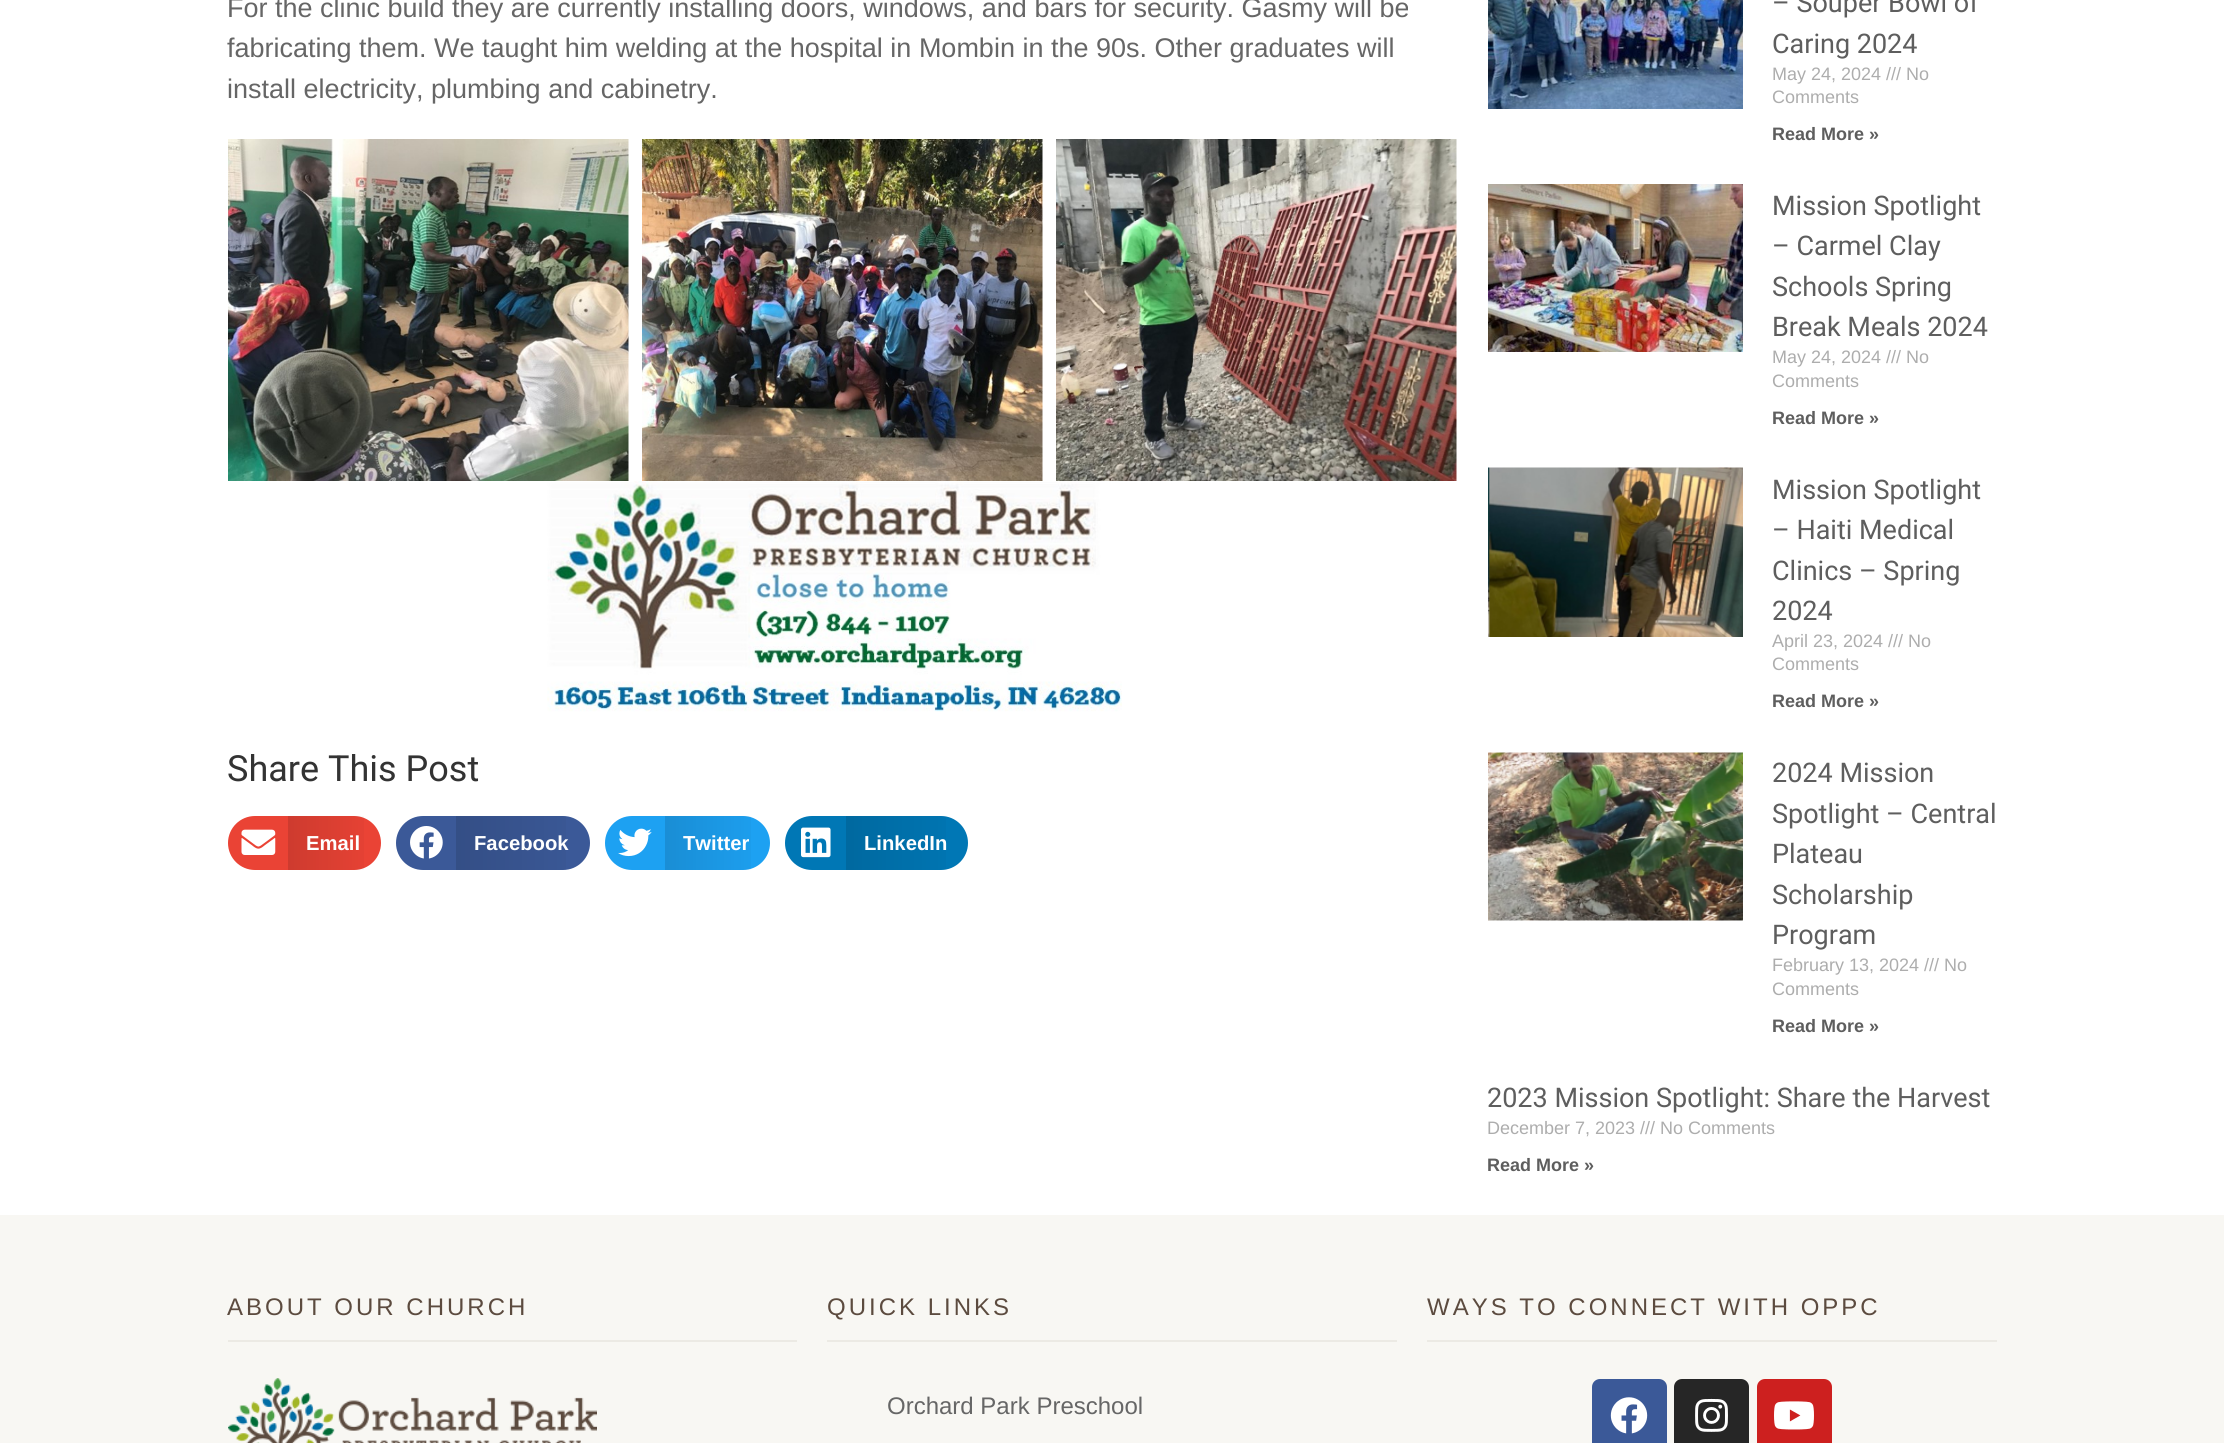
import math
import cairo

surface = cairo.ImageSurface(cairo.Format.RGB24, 2224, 1443)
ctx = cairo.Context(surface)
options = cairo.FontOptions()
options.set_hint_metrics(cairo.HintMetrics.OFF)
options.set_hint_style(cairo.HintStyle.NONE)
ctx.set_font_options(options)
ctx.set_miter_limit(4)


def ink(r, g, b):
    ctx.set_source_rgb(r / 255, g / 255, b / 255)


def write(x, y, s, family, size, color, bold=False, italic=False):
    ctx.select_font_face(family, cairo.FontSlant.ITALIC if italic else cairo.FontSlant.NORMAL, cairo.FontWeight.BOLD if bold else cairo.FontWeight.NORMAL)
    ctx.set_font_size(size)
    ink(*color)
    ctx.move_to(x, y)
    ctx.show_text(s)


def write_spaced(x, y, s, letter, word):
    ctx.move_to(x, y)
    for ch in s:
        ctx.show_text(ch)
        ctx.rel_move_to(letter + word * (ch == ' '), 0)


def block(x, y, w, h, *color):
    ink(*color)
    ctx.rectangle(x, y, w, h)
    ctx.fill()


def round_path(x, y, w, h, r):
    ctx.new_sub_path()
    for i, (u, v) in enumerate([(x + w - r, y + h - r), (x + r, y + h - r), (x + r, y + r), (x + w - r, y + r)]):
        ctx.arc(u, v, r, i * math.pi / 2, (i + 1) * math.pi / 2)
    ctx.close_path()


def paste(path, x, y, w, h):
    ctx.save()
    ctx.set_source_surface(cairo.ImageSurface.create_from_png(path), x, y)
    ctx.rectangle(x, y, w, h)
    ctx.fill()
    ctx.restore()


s1 = dict(family="Liberation Sans", size=27, color=(102, 102, 102))
s2 = dict(family="Roboto", size=36, color=(51, 51, 51))
s3 = dict(family="Liberation Sans", size=20.25, color=(255, 255, 255), bold=True)
s4 = dict(family="Roboto", size=27, color=(94, 94, 94))
s5 = dict(family="Liberation Sans", size=18, color=(173, 173, 173))
s6 = dict(family="Liberation Sans", size=18, color=(94, 94, 94), bold=True)
s7 = dict(family="Liberation Sans", size=24, color=(102, 102, 102))

ink(255, 255, 255)
ctx.paint()
write(227, 17, "For the clinic build they are currently installing doors, windows, and bars for security. Gasmy will be", **s1)
write(227, 57, "fabricating them. We taught him welding at the hospital in Mombin in the 90s. Other graduates will", **s1)
write(227, 98, "install electricity, plumbing and cabinetry.", **s1)
paste("pic1.png", 228, 139, 401, 342)
paste("pic2.png", 642, 139, 401, 342)
paste("pic3.png", 1056, 139, 401, 342)
paste("pic4.png", 547, 481, 575, 231)
write(227, 781, "Share This Post", **s2)
ink(234, 67, 53)
round_path(228, 816, 153, 54, 27)
ctx.fill()
paste("pic5.png", 241, 829, 35, 26)
gradient = cairo.LinearGradient(288, 843, 381, 843)
gradient.add_color_stop_rgba(0, 0, 0, 0, 0.12)
gradient.add_color_stop_rgba(1, 0, 0, 0, 0)
ctx.set_source(gradient)
ctx.rectangle(288, 816, 76, 54)
ctx.fill()
write(306, 850, "Email", **s3)
ink(59, 89, 152)
round_path(396, 816, 194, 54, 27)
ctx.fill()
paste("pic6.png", 410, 826, 33, 33)
gradient = cairo.LinearGradient(456, 843, 590, 843)
gradient.add_color_stop_rgba(0, 0, 0, 0, 0.12)
gradient.add_color_stop_rgba(1, 0, 0, 0, 0)
ctx.set_source(gradient)
ctx.rectangle(456, 816, 110, 54)
ctx.fill()
write(474, 850, "Facebook", **s3)
ink(29, 161, 242)
round_path(605, 816, 165, 54, 27)
ctx.fill()
paste("pic7.png", 618, 828, 34, 29)
gradient = cairo.LinearGradient(665, 843, 770, 843)
gradient.add_color_stop_rgba(0, 0, 0, 0, 0.12)
gradient.add_color_stop_rgba(1, 0, 0, 0, 0)
ctx.set_source(gradient)
ctx.rectangle(665, 816, 86, 54)
ctx.fill()
write(683, 850, "Twitter", **s3)
ink(0, 119, 181)
round_path(785, 816, 183, 54, 27)
ctx.fill()
paste("pic8.png", 801, 827, 30, 31)
gradient = cairo.LinearGradient(846, 843, 968, 843)
gradient.add_color_stop_rgba(0, 0, 0, 0, 0.12)
gradient.add_color_stop_rgba(1, 0, 0, 0, 0)
ctx.set_source(gradient)
ctx.rectangle(846, 816, 100, 54)
ctx.fill()
write(864, 850, "LinkedIn", **s3)
paste("pic9.png", 1488, 0, 255, 109)
write(1772, 12, "– Souper Bowl of", **s4)
write(1772, 53, "Caring 2024", **s4)
write(1772, 80, "May 24, 2024 /// No", **s5)
write(1772, 103, "Comments", **s5)
write(1772, 140, "Read More »", **s6)
paste("pic10.png", 1488, 184, 255, 168)
write(1772, 215, "Mission Spotlight", **s4)
write(1772, 255, "– Carmel Clay", **s4)
write(1772, 296, "Schools Spring", **s4)
write(1772, 336, "Break Meals 2024", **s4)
write(1772, 363, "May 24, 2024 /// No", **s5)
write(1772, 387, "Comments", **s5)
write(1772, 424, "Read More »", **s6)
paste("pic11.png", 1488, 467, 255, 170)
write(1772, 499, "Mission Spotlight", **s4)
write(1772, 539, "– Haiti Medical", **s4)
write(1772, 580, "Clinics – Spring", **s4)
write(1772, 620, "2024", **s4)
write(1772, 647, "April 23, 2024 /// No", **s5)
write(1772, 670, "Comments", **s5)
write(1772, 707, "Read More »", **s6)
paste("pic12.png", 1488, 752, 255, 169)
write(1772, 782, "2024 Mission", **s4)
write(1772, 823, "Spotlight – Central", **s4)
write(1772, 863, "Plateau", **s4)
write(1772, 904, "Scholarship", **s4)
write(1772, 944, "Program", **s4)
write(1772, 971, "February 13, 2024 /// No", **s5)
write(1772, 995, "Comments", **s5)
write(1772, 1032, "Read More »", **s6)
write(1487, 1107, "2023 Mission Spotlight: Share the Harvest", **s4)
write(1487, 1134, "December 7, 2023 /// No Comments", **s5)
write(1487, 1171, "Read More »", **s6)
block(0, 1215, 2224, 228, 248, 247, 243)
block(228, 1340, 569, 2, 236, 234, 228)
ctx.select_font_face("Liberation Sans")
ctx.set_font_size(24)
ink(92, 75, 63)
write_spaced(227, 1315, "ABOUT OUR CHURCH", 3, 0)
paste("pic13.png", 228, 1378, 369, 65)
block(827, 1340, 570, 2, 236, 234, 228)
ink(92, 75, 63)
write_spaced(827, 1315, "QUICK LINKS", 3, 0)
write(887, 1414, "Orchard Park Preschool", **s7)
block(1427, 1340, 570, 2, 236, 234, 228)
ink(92, 75, 63)
write_spaced(1427, 1315, "WAYS TO CONNECT WITH OPPC", 3, 0)
ink(59, 89, 152)
round_path(1592, 1379, 75, 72, 8)
ctx.fill()
paste("pic14.png", 1610, 1397, 38, 37)
ink(38, 38, 38)
round_path(1674, 1379, 75, 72, 8)
ctx.fill()
paste("pic15.png", 1695, 1398, 33, 34)
ink(205, 32, 31)
round_path(1757, 1379, 75, 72, 8)
ctx.fill()
paste("pic16.png", 1774, 1401, 40, 29)
surface.write_to_png("screenshot.png")
